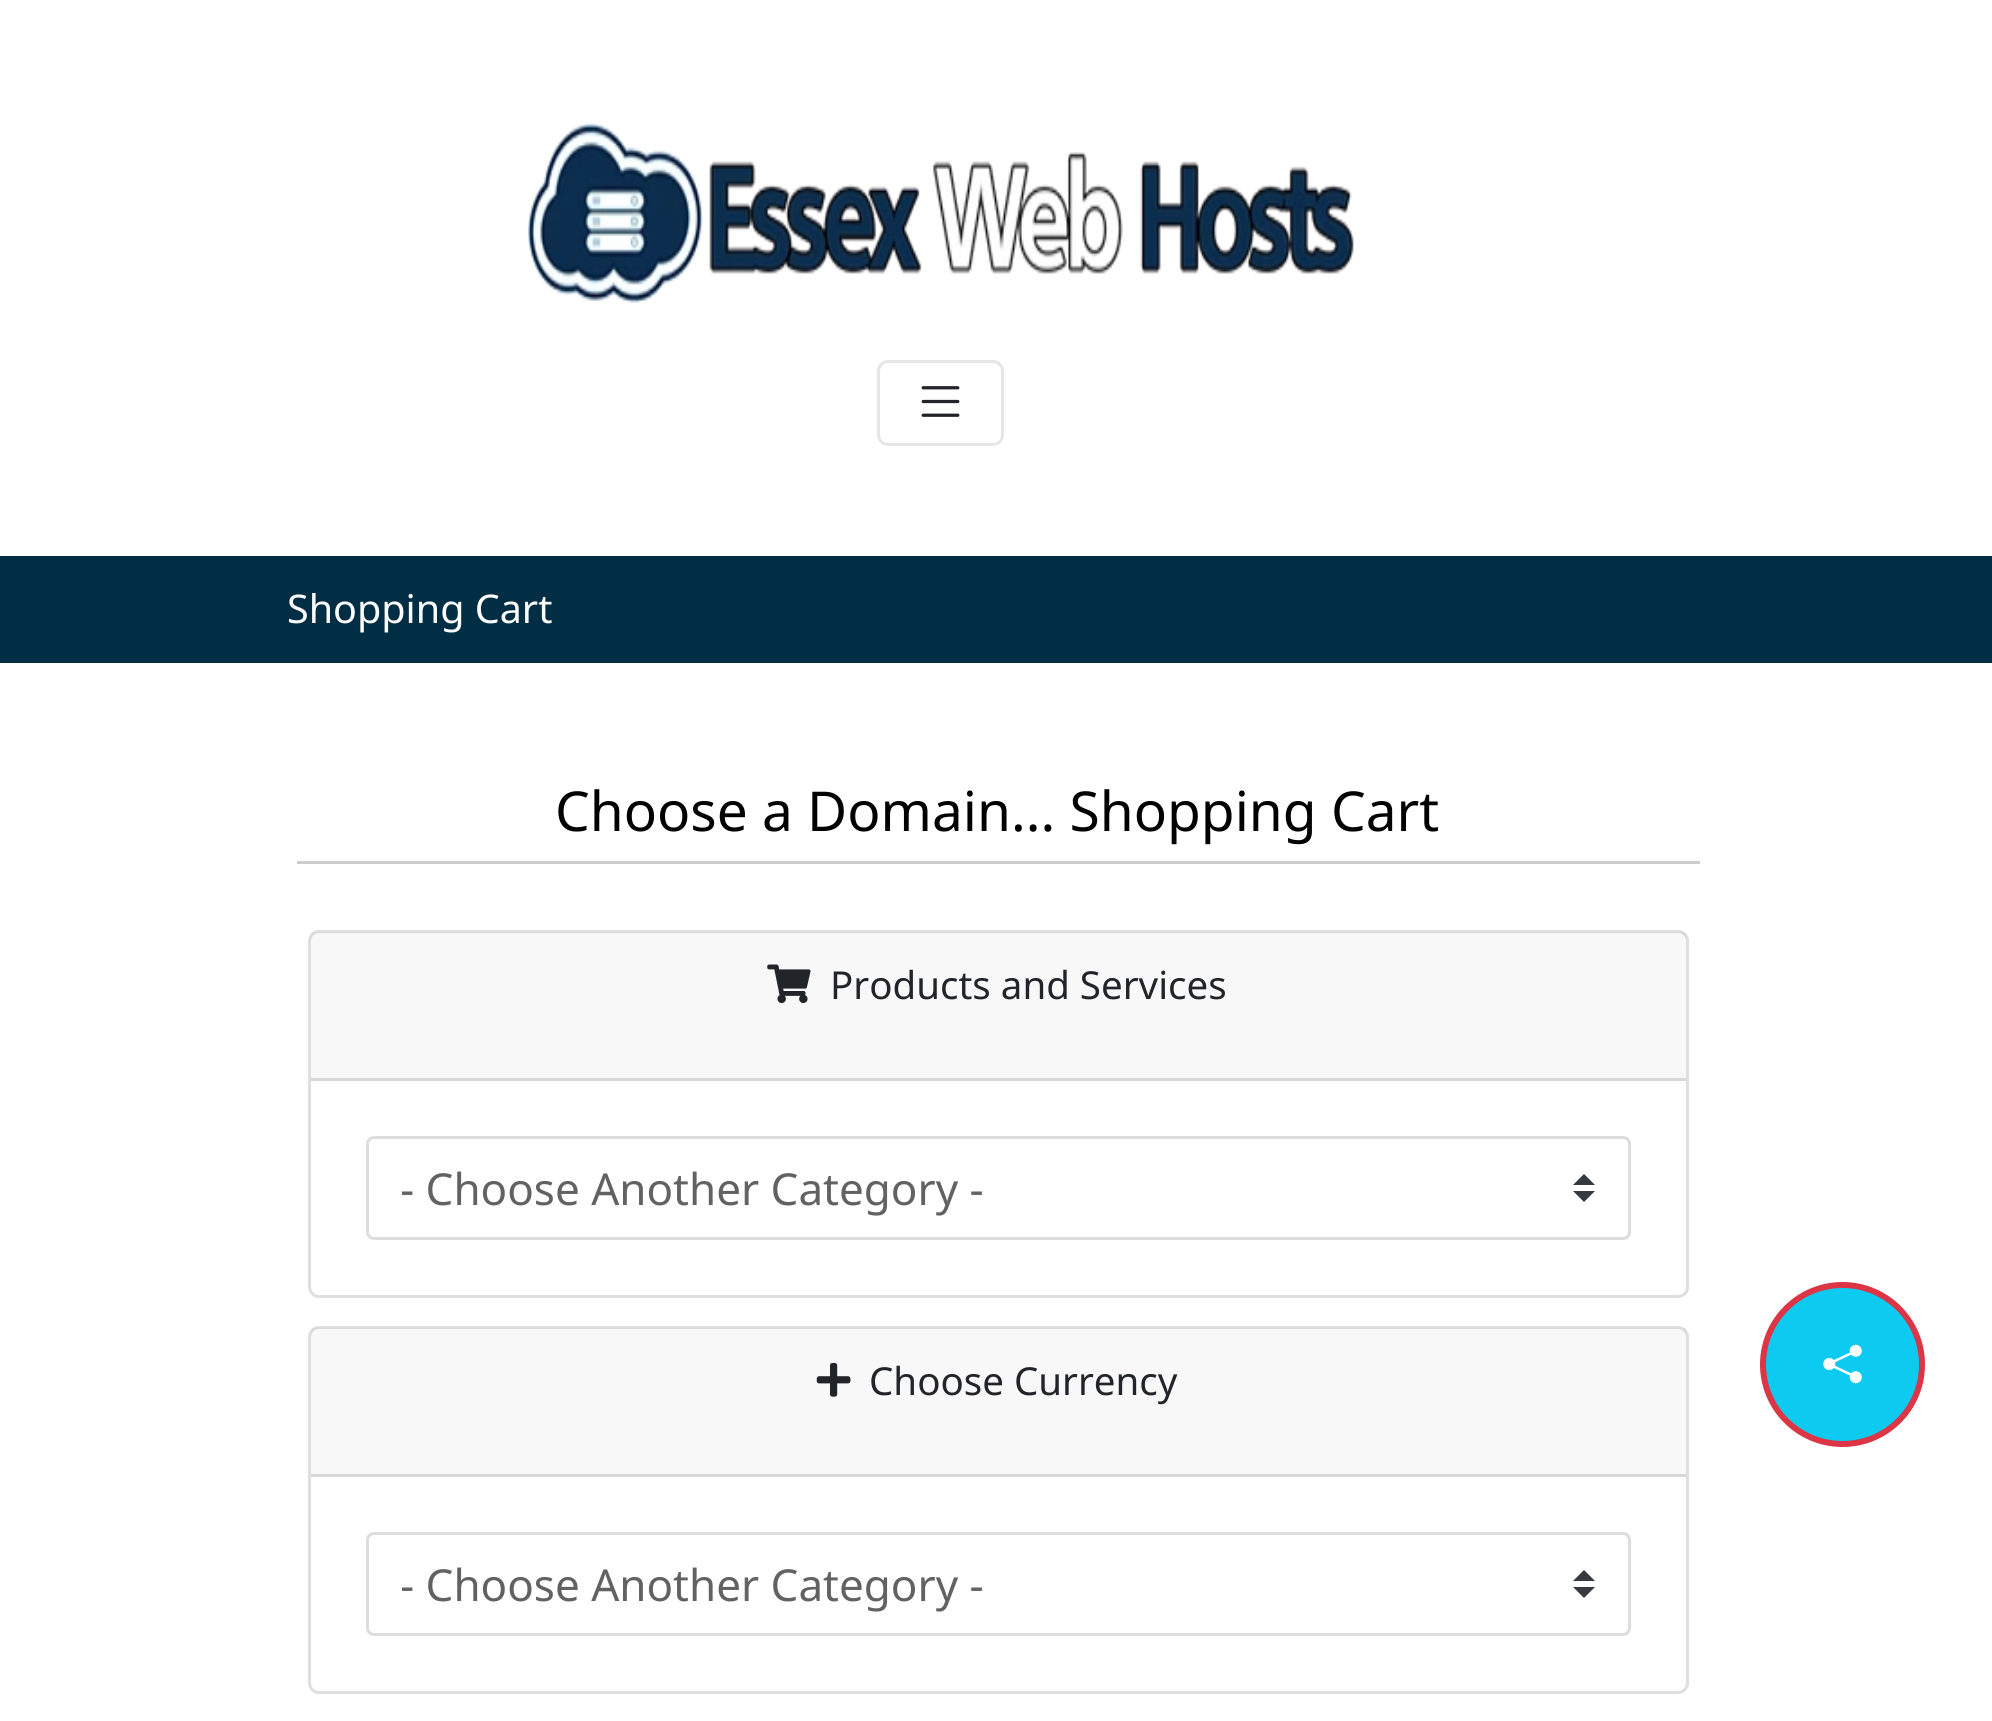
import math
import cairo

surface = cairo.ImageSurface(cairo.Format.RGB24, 1992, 1721)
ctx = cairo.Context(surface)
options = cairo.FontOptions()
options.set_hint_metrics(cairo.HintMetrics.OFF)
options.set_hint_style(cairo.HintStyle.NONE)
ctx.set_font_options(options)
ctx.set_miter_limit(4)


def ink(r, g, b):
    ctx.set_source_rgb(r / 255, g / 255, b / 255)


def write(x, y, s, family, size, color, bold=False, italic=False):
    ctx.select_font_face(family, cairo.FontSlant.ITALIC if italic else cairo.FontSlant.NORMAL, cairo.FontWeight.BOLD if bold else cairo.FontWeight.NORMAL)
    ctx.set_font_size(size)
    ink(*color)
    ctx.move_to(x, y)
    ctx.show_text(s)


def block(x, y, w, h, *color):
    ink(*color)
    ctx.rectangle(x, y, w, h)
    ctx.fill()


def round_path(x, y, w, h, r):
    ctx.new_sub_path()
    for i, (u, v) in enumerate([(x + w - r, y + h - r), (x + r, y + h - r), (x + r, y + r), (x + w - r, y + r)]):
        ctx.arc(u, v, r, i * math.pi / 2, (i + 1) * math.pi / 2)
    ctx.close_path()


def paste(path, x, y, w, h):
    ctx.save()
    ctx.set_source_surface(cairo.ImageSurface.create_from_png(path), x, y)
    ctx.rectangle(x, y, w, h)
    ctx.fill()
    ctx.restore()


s1 = dict(family="Noto Sans", size=39.5, color=(255, 255, 255))
s2 = dict(family="Noto Sans", size=55, color=(0, 0, 0))
s3 = dict(family="Noto Sans", size=38.5, color=(33, 37, 41))
s4 = dict(family="Noto Sans", size=44, color=(98, 98, 98))

ink(255, 255, 255)
ctx.paint()
paste("pic1.png", 528, 123, 826, 180)
round_path(878.5, 361.5, 124, 83, 9.5)
ink(230, 230, 230)
ctx.set_line_width(3)
ctx.stroke()
paste("pic2.png", 921, 386, 39, 31)
block(0, 556, 1992, 107, 1, 46, 68)
write(287, 623, "Shopping Cart", **s1)
block(297, 861, 1403, 3, 204, 204, 204)
write(555, 831, "Choose a Domain... Shopping Cart", **s2)
round_path(309.5, 931.5, 1378, 365, 9.5)
ink(223, 223, 223)
ctx.stroke()
ctx.set_source_rgba(0, 0, 0, 0.03)
ctx.rectangle(311, 932, 1375, 146)
ctx.fill()
block(311, 1078, 1375, 3, 216, 216, 216)
paste("pic3.png", 767, 964, 44, 40)
write(830, 999, "Products and Services", **s3)
ink(52, 58, 64)
ctx.new_path()
ctx.move_to(1584, 1174)
ctx.line_to(1573, 1185)
ctx.line_to(1595, 1185)
ctx.close_path()
ctx.move_to(1584, 1202)
ctx.line_to(1573, 1191)
ctx.line_to(1595, 1191)
ctx.close_path()
ctx.fill()
round_path(367.5, 1137.5, 1262, 101, 6.5)
ink(221, 221, 221)
ctx.stroke()
ctx.save()
ctx.rectangle(402, 1155, 1193, 66)
ctx.clip()
write(400, 1205, "- Choose Another Category -", **s4)
ctx.restore()
round_path(309.5, 1327.5, 1378, 365, 9.5)
ink(223, 223, 223)
ctx.stroke()
ctx.set_source_rgba(0, 0, 0, 0.03)
ctx.rectangle(311, 1328, 1375, 146)
ctx.fill()
block(311, 1474, 1375, 3, 216, 216, 216)
paste("pic4.png", 816, 1363, 35, 34)
write(869, 1395, "Choose Currency", **s3)
ink(52, 58, 64)
ctx.new_path()
ctx.move_to(1584, 1570)
ctx.line_to(1573, 1581)
ctx.line_to(1595, 1581)
ctx.close_path()
ctx.move_to(1584, 1598)
ctx.line_to(1573, 1587)
ctx.line_to(1595, 1587)
ctx.close_path()
ctx.fill()
round_path(367.5, 1533.5, 1262, 101, 6.5)
ink(221, 221, 221)
ctx.stroke()
ctx.save()
ctx.rectangle(402, 1551, 1193, 66)
ctx.clip()
write(400, 1601, "- Choose Another Category -", **s4)
ctx.restore()
ink(13, 202, 240)
ctx.new_path()
ctx.arc(1842.5, 1364.5, 79.5, 0, 2 * math.pi)
ctx.fill_preserve()
ink(220, 53, 69)
ctx.set_line_width(6)
ctx.stroke()
paste("pic5.png", 1823, 1344, 39, 40)
surface.write_to_png("screenshot.png")
